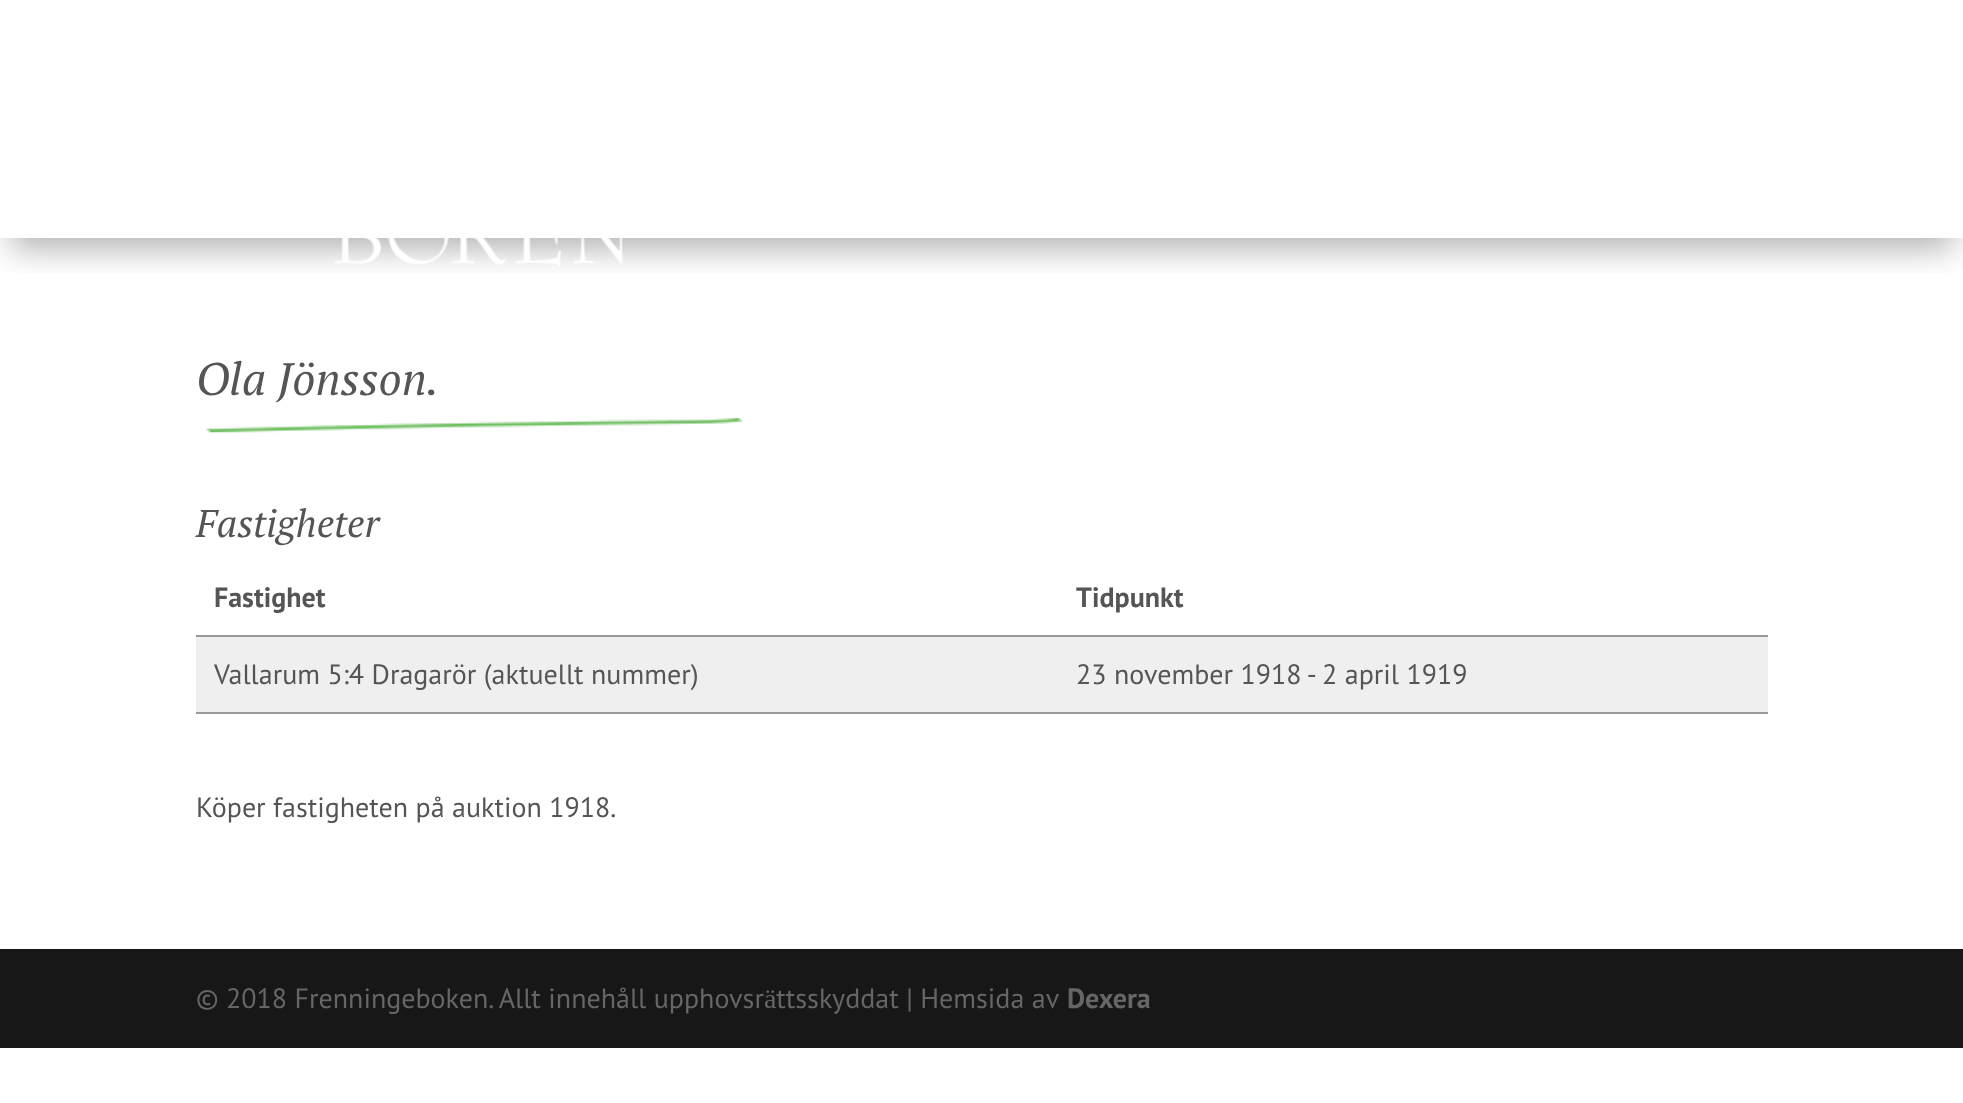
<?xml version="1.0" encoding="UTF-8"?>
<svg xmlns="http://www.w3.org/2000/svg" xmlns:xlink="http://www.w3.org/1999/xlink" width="1963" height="1103">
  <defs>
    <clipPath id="clip1"><rect x="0" y="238" width="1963" height="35" /></clipPath>
  </defs>
  <rect width="100%" height="100%" fill="#ffffff" />
  <g clip-path="url(#clip1)">
    <rect x="11" y="32" width="1942" height="217" fill="#000000" fill-opacity="0.3" filter="blur(16px)" />
  </g>
  <image x="334" y="238" width="289" height="29" xlink:href="image1.png" />
  <image x="206" y="418" width="537" height="15" xlink:href="image2.png" />
  <rect x="196" y="635" width="1572" height="2" fill="#999999" />
  <rect x="196" y="712" width="1572" height="2" fill="#999999" />
  <rect x="196" y="637" width="1572" height="75" fill="#efefef" />
  <rect y="949" width="1963" height="99" fill="#171717" />
  <text x="196" y="395" style="font-family: PT Serif; font-size: 45.5px; font-style: italic; fill: #555555">Ola Jönsson.</text>
  <text x="196" y="537" style="font-family: PT Serif; font-size: 38.5px; font-style: italic; fill: #555555">Fastigheter</text>
  <text x="214" y="607" style="font-family: PT Sans; font-size: 28px; font-weight: bold; fill: #555555">Fastighet</text>
  <text x="1076" y="607" style="font-family: PT Sans; font-size: 28px; font-weight: bold; fill: #555555">Tidpunkt</text>
  <text x="214" y="684" style="font-family: PT Sans; font-size: 28px; fill: #555555">Vallarum 5:4 Dragarör (aktuellt nummer)</text>
  <text x="1076" y="684" style="font-family: PT Sans; font-size: 28px; fill: #555555">23 november 1918 - 2 april 1919</text>
  <text x="196" y="817" style="font-family: PT Sans; font-size: 28px; fill: #555555">Köper fastigheten på auktion 1918.</text>
  <text x="196" y="1008" style="font-family: PT Sans; font-size: 28px; fill: #666666">© 2018 Frenningeboken. Allt innehåll upphovsrättsskyddat | Hemsida av</text>
  <text x="1067" y="1008" style="font-family: PT Sans; font-size: 28px; font-weight: bold; fill: #666666">Dexera</text>
</svg>
